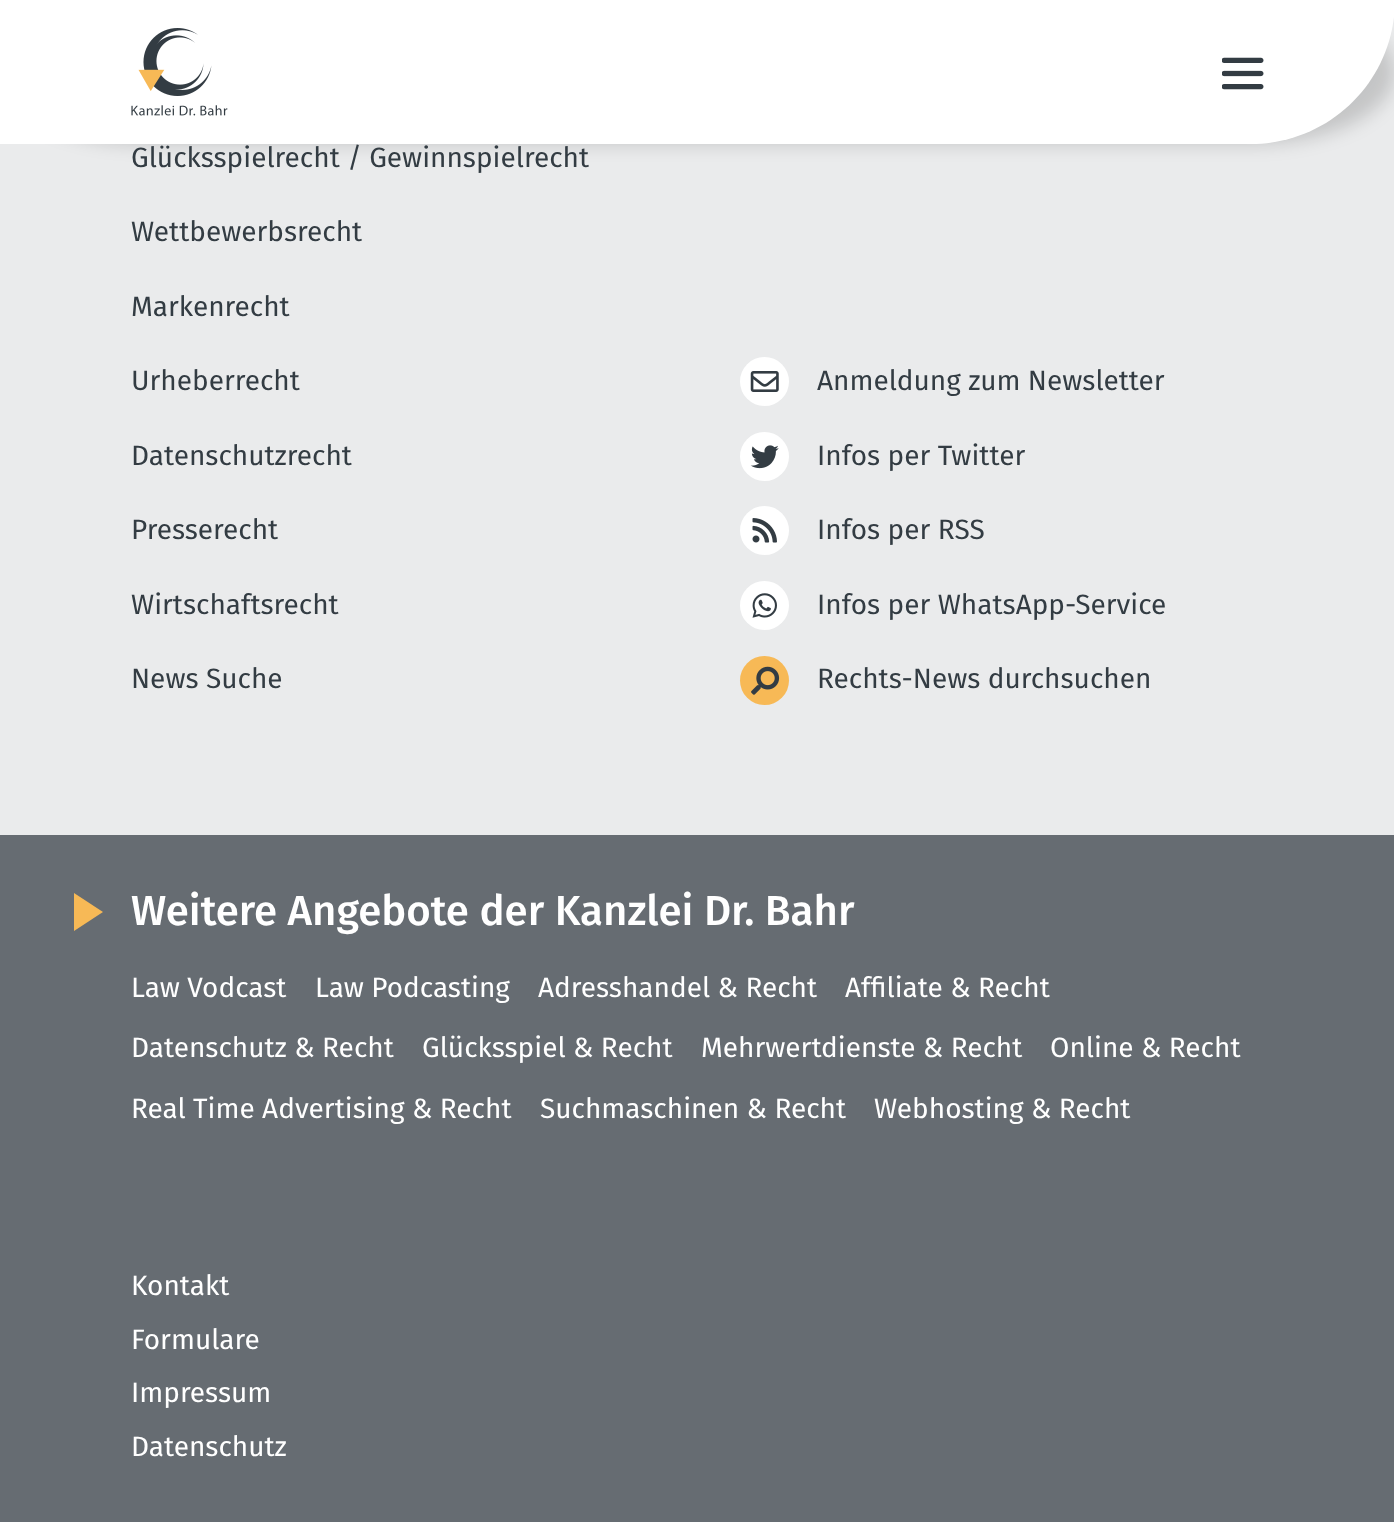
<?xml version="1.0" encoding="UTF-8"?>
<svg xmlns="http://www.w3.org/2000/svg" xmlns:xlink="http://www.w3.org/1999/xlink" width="1394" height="1522">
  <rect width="100%" height="100%" fill="#666c72" />
  <rect x="131" y="143" width="1133" height="692" fill="#eaebec" />
  <rect y="144" width="131" height="691" fill="#eaebec" />
  <rect x="1264" y="17" width="130" height="818" fill="#eaebec" />
  <rect width="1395" height="144" rx="144" fill="#000000" fill-opacity="0.16" filter="blur(9px)" />
  <path d="M 0 0 h 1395 c 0 79.5 -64.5 144 -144 144 h -1251 z" fill="#ffffff" />
  <image x="131" y="28" width="97" height="88" xlink:href="image1.png" />
  <image x="1222" y="57" width="42" height="33" xlink:href="image2.png" />
  <circle cx="764.5" cy="381.5" r="24.5" fill="#ffffff" />
  <image x="750" y="371" width="29" height="21" xlink:href="image3.png" />
  <circle cx="764.5" cy="456.5" r="24.5" fill="#ffffff" />
  <image x="750" y="445" width="29" height="24" xlink:href="image4.png" />
  <circle cx="764.5" cy="530.5" r="24.5" fill="#ffffff" />
  <image x="752" y="518" width="25" height="25" xlink:href="image5.png" />
  <circle cx="764.5" cy="605.5" r="24.5" fill="#ffffff" />
  <image x="752" y="593" width="25" height="25" xlink:href="image6.png" />
  <circle cx="764.5" cy="680.5" r="24.5" fill="#f7b956" />
  <image x="751" y="666" width="29" height="29" xlink:href="image7.png" />
  <path d="M 103 912 l -29 19 v -38 z" fill="#f7b956" />
  <text x="131" y="167" style="font-family: Fira Sans; font-size: 28px; fill: #333c43">Glücksspielrecht / Gewinnspielrecht</text>
  <text x="131" y="241" style="font-family: Fira Sans; font-size: 28px; fill: #333c43">Wettbewerbsrecht</text>
  <text x="131" y="316" style="font-family: Fira Sans; font-size: 28px; fill: #333c43">Markenrecht</text>
  <text x="131" y="390" style="font-family: Fira Sans; font-size: 28px; fill: #333c43">Urheberrecht</text>
  <text x="131" y="465" style="font-family: Fira Sans; font-size: 28px; fill: #333c43">Datenschutzrecht</text>
  <text x="131" y="539" style="font-family: Fira Sans; font-size: 28px; fill: #333c43">Presserecht</text>
  <text x="131" y="614" style="font-family: Fira Sans; font-size: 28px; fill: #333c43">Wirtschaftsrecht</text>
  <text x="131" y="688" style="font-family: Fira Sans; font-size: 28px; fill: #333c43">News Suche</text>
  <text x="817" y="390" style="font-family: Fira Sans; font-size: 28px; fill: #333c43">Anmeldung zum Newsletter</text>
  <text x="817" y="465" style="font-family: Fira Sans; font-size: 28px; fill: #333c43">Infos per Twitter</text>
  <text x="817" y="539" style="font-family: Fira Sans; font-size: 28px; fill: #333c43">Infos per RSS</text>
  <text x="817" y="614" style="font-family: Fira Sans; font-size: 28px; fill: #333c43">Infos per WhatsApp-Service</text>
  <text x="817" y="688" style="font-family: Fira Sans; font-size: 28px; fill: #333c43">Rechts-News durchsuchen</text>
  <text x="131" y="925" style="font-family: Fira Sans; font-size: 42px; font-weight: 500; fill: #ffffff">Weitere Angebote der Kanzlei Dr. Bahr</text>
  <text x="131" y="997" style="font-family: Fira Sans; font-size: 28px; fill: #ffffff">Law Vodcast</text>
  <text x="315" y="997" style="font-family: Fira Sans; font-size: 28px; fill: #ffffff">Law Podcasting</text>
  <text x="538" y="997" style="font-family: Fira Sans; font-size: 28px; fill: #ffffff">Adresshandel &amp; Recht</text>
  <text x="845" y="997" style="font-family: Fira Sans; font-size: 28px; fill: #ffffff">Affiliate &amp; Recht</text>
  <text x="131" y="1057" style="font-family: Fira Sans; font-size: 28px; fill: #ffffff">Datenschutz &amp; Recht</text>
  <text x="422" y="1057" style="font-family: Fira Sans; font-size: 28px; fill: #ffffff">Glücksspiel &amp; Recht</text>
  <text x="701" y="1057" style="font-family: Fira Sans; font-size: 28px; fill: #ffffff">Mehrwertdienste &amp; Recht</text>
  <text x="1050" y="1057" style="font-family: Fira Sans; font-size: 28px; fill: #ffffff">Online &amp; Recht</text>
  <text x="131" y="1118" style="font-family: Fira Sans; font-size: 28px; fill: #ffffff">Real Time Advertising &amp; Recht</text>
  <text x="540" y="1118" style="font-family: Fira Sans; font-size: 28px; fill: #ffffff">Suchmaschinen &amp; Recht</text>
  <text x="874" y="1118" style="font-family: Fira Sans; font-size: 28px; fill: #ffffff">Webhosting &amp; Recht</text>
  <text x="131" y="1295" style="font-family: Fira Sans; font-size: 28px; fill: #ffffff">Kontakt</text>
  <text x="131" y="1349" style="font-family: Fira Sans; font-size: 28px; fill: #ffffff">Formulare</text>
  <text x="131" y="1402" style="font-family: Fira Sans; font-size: 28px; fill: #ffffff">Impressum</text>
  <text x="131" y="1456" style="font-family: Fira Sans; font-size: 28px; fill: #ffffff">Datenschutz</text>
</svg>
